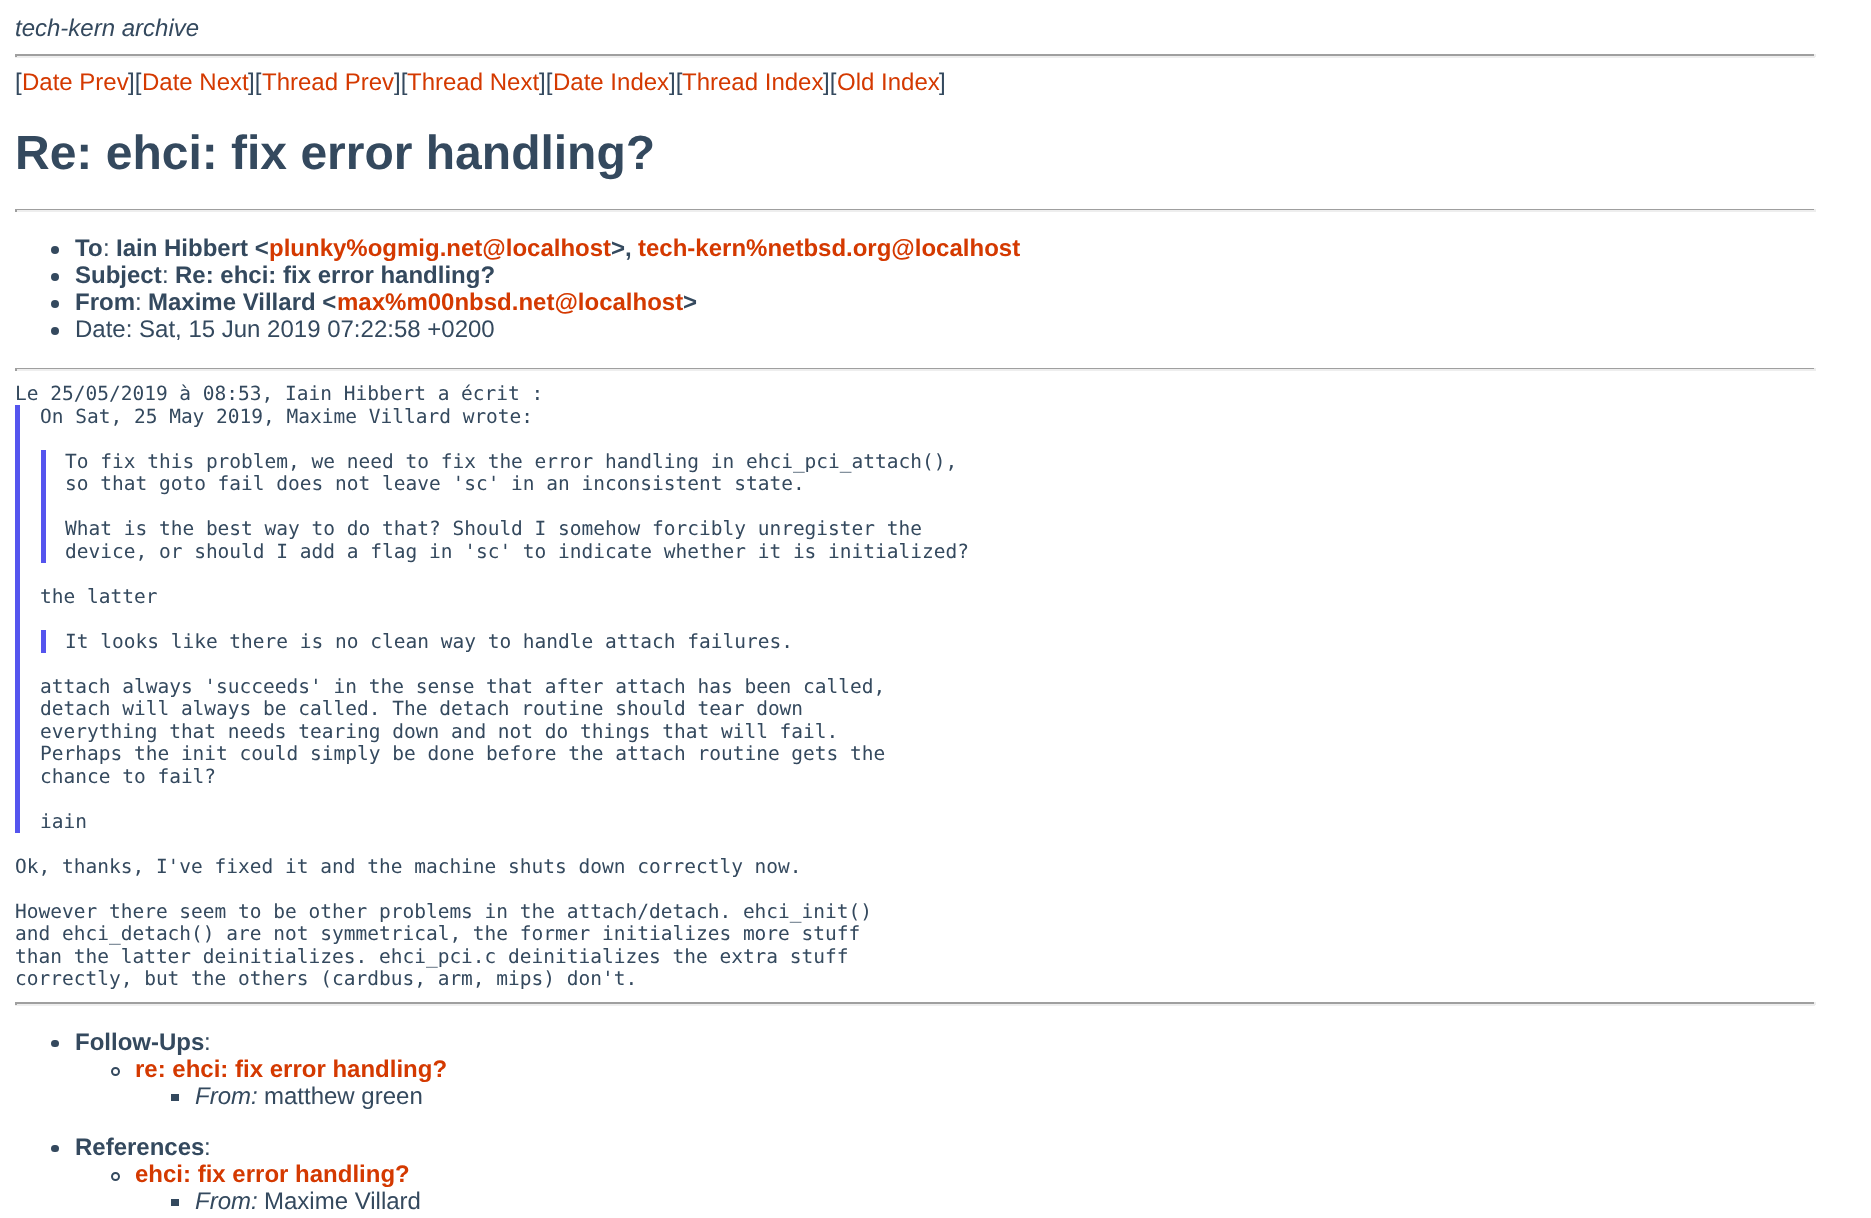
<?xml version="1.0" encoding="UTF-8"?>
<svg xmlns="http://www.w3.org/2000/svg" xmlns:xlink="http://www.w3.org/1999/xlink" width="1871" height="1218">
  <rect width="100%" height="100%" fill="#ffffff" />
  <rect x="15" y="54" width="1800" height="2" fill="#9f9f9f" />
  <rect x="1814" y="54" width="2" height="3" fill="#eeeeee" />
  <rect x="15" y="56" width="1800" height="2" fill="#eeeeee" />
  <rect x="15" y="54" width="2" height="3" fill="#9f9f9f" />
  <rect x="15" y="209" width="1800" height="1" fill="#9f9f9f" />
  <rect x="1814" y="209" width="2" height="3" fill="#eeeeee" />
  <rect x="15" y="210" width="1800" height="2" fill="#eeeeee" />
  <rect x="15" y="209" width="2" height="3" fill="#9f9f9f" />
  <circle cx="55" cy="250" r="4" fill="#34495e" />
  <circle cx="55" cy="277" r="4" fill="#34495e" />
  <circle cx="55" cy="304" r="4" fill="#34495e" />
  <circle cx="55" cy="331" r="4" fill="#34495e" />
  <rect x="15" y="368" width="1800" height="1" fill="#9f9f9f" />
  <rect x="1814" y="368" width="2" height="3" fill="#eeeeee" />
  <rect x="15" y="369" width="1800" height="2" fill="#eeeeee" />
  <rect x="15" y="368" width="2" height="3" fill="#9f9f9f" />
  <rect x="15" y="405" width="5" height="428" fill="#5555ee" />
  <rect x="41" y="450" width="5" height="113" fill="#5555ee" />
  <rect x="41" y="630" width="5" height="23" fill="#5555ee" />
  <rect x="15" y="1002" width="1800" height="2" fill="#9f9f9f" />
  <rect x="1814" y="1002" width="2" height="3" fill="#eeeeee" />
  <rect x="15" y="1004" width="1800" height="2" fill="#eeeeee" />
  <rect x="15" y="1002" width="2" height="3" fill="#9f9f9f" />
  <rect x="51" y="1040" width="8" height="7" rx="3.5" fill="#34495e" />
  <circle cx="115.5" cy="1071.5" r="3.5" fill="none" stroke="#34495e" stroke-width="2" />
  <rect x="171" y="1094" width="8" height="7" fill="#34495e" />
  <rect x="51" y="1145" width="8" height="7" rx="3.5" fill="#34495e" />
  <circle cx="115.5" cy="1176.5" r="3.5" fill="none" stroke="#34495e" stroke-width="2" />
  <rect x="171" y="1199" width="8" height="7" fill="#34495e" />
  <text x="15" y="36" style="font-family: Liberation Sans; font-size: 24px; font-style: italic; fill: #34495e">tech-kern archive</text>
  <text x="15" y="90" style="font-family: Liberation Sans; font-size: 24px; fill: #34495e">[</text>
  <text x="22" y="90" style="font-family: Liberation Sans; font-size: 24px; fill: #d43900">Date Prev</text>
  <text x="128" y="90" style="font-family: Liberation Sans; font-size: 24px; fill: #34495e">][</text>
  <text x="142" y="90" style="font-family: Liberation Sans; font-size: 24px; fill: #d43900">Date Next</text>
  <text x="248" y="90" style="font-family: Liberation Sans; font-size: 24px; fill: #34495e">][</text>
  <text x="262" y="90" style="font-family: Liberation Sans; font-size: 24px; fill: #d43900">Thread Prev</text>
  <text x="394" y="90" style="font-family: Liberation Sans; font-size: 24px; fill: #34495e">][</text>
  <text x="407" y="90" style="font-family: Liberation Sans; font-size: 24px; fill: #d43900">Thread Next</text>
  <text x="539" y="90" style="font-family: Liberation Sans; font-size: 24px; fill: #34495e">][</text>
  <text x="553" y="90" style="font-family: Liberation Sans; font-size: 24px; fill: #d43900">Date Index</text>
  <text x="669" y="90" style="font-family: Liberation Sans; font-size: 24px; fill: #34495e">][</text>
  <text x="682" y="90" style="font-family: Liberation Sans; font-size: 24px; fill: #d43900">Thread Index</text>
  <text x="823" y="90" style="font-family: Liberation Sans; font-size: 24px; fill: #34495e">][</text>
  <text x="837" y="90" style="font-family: Liberation Sans; font-size: 24px; fill: #d43900">Old Index</text>
  <text x="939" y="90" style="font-family: Liberation Sans; font-size: 24px; fill: #34495e">]</text>
  <text x="15" y="169" style="font-family: Liberation Sans; font-size: 48px; font-weight: bold; fill: #34495e">Re: ehci: fix error handling?</text>
  <text x="75" y="256" style="font-family: Liberation Sans; font-size: 24px; font-weight: bold; fill: #34495e">To</text>
  <text x="103" y="256" style="font-family: Liberation Sans; font-size: 24px; fill: #34495e">:</text>
  <text x="116" y="256" style="font-family: Liberation Sans; font-size: 24px; font-weight: bold; fill: #34495e">Iain Hibbert &lt;</text>
  <text x="269" y="256" style="font-family: Liberation Sans; font-size: 24px; font-weight: bold; fill: #d43900">plunky%ogmig.net@localhost</text>
  <text x="611" y="256" style="font-family: Liberation Sans; font-size: 24px; font-weight: bold; fill: #34495e">&gt;,</text>
  <text x="638" y="256" style="font-family: Liberation Sans; font-size: 24px; font-weight: bold; fill: #d43900">tech-kern%netbsd.org@localhost</text>
  <text x="75" y="283" style="font-family: Liberation Sans; font-size: 24px; font-weight: bold; fill: #34495e">Subject</text>
  <text x="162" y="283" style="font-family: Liberation Sans; font-size: 24px; fill: #34495e">:</text>
  <text x="175" y="283" style="font-family: Liberation Sans; font-size: 24px; font-weight: bold; fill: #34495e">Re: ehci: fix error handling?</text>
  <text x="75" y="310" style="font-family: Liberation Sans; font-size: 24px; font-weight: bold; fill: #34495e">From</text>
  <text x="135" y="310" style="font-family: Liberation Sans; font-size: 24px; fill: #34495e">:</text>
  <text x="148" y="310" style="font-family: Liberation Sans; font-size: 24px; font-weight: bold; fill: #34495e">Maxime Villard &lt;</text>
  <text x="337" y="310" style="font-family: Liberation Sans; font-size: 24px; font-weight: bold; fill: #d43900">max%m00nbsd.net@localhost</text>
  <text x="683" y="310" style="font-family: Liberation Sans; font-size: 24px; font-weight: bold; fill: #34495e">&gt;</text>
  <text x="75" y="337" style="font-family: Liberation Sans; font-size: 24px; fill: #34495e">Date: Sat, 15 Jun 2019 07:22:58 +0200</text>
  <text x="15" y="400" style="font-family: DejaVu Sans Mono; font-size: 19.5px; fill: #34495e">Le 25/05/2019 à 08:53, Iain Hibbert a écrit :</text>
  <text x="40" y="423" style="font-family: DejaVu Sans Mono; font-size: 19.5px; fill: #34495e">On Sat, 25 May 2019, Maxime Villard wrote:</text>
  <text x="65" y="468" style="font-family: DejaVu Sans Mono; font-size: 19.5px; fill: #34495e">To fix this problem, we need to fix the error handling in ehci_pci_attach(),</text>
  <text x="65" y="490" style="font-family: DejaVu Sans Mono; font-size: 19.5px; fill: #34495e">so that goto fail does not leave 'sc' in an inconsistent state.</text>
  <text x="65" y="535" style="font-family: DejaVu Sans Mono; font-size: 19.5px; fill: #34495e">What is the best way to do that? Should I somehow forcibly unregister the</text>
  <text x="65" y="558" style="font-family: DejaVu Sans Mono; font-size: 19.5px; fill: #34495e">device, or should I add a flag in 'sc' to indicate whether it is initialized?</text>
  <text x="40" y="603" style="font-family: DejaVu Sans Mono; font-size: 19.5px; fill: #34495e">the latter</text>
  <text x="65" y="648" style="font-family: DejaVu Sans Mono; font-size: 19.5px; fill: #34495e">It looks like there is no clean way to handle attach failures.</text>
  <text x="40" y="693" style="font-family: DejaVu Sans Mono; font-size: 19.5px; fill: #34495e">attach always 'succeeds' in the sense that after attach has been called,</text>
  <text x="40" y="715" style="font-family: DejaVu Sans Mono; font-size: 19.5px; fill: #34495e">detach will always be called. The detach routine should tear down</text>
  <text x="40" y="738" style="font-family: DejaVu Sans Mono; font-size: 19.5px; fill: #34495e">everything that needs tearing down and not do things that will fail.</text>
  <text x="40" y="760" style="font-family: DejaVu Sans Mono; font-size: 19.5px; fill: #34495e">Perhaps the init could simply be done before the attach routine gets the</text>
  <text x="40" y="783" style="font-family: DejaVu Sans Mono; font-size: 19.5px; fill: #34495e">chance to fail?</text>
  <text x="40" y="828" style="font-family: DejaVu Sans Mono; font-size: 19.5px; fill: #34495e">iain</text>
  <text x="15" y="873" style="font-family: DejaVu Sans Mono; font-size: 19.5px; fill: #34495e">Ok, thanks, I've fixed it and the machine shuts down correctly now.</text>
  <text x="15" y="918" style="font-family: DejaVu Sans Mono; font-size: 19.5px; fill: #34495e">However there seem to be other problems in the attach/detach. ehci_init()</text>
  <text x="15" y="940" style="font-family: DejaVu Sans Mono; font-size: 19.5px; fill: #34495e">and ehci_detach() are not symmetrical, the former initializes more stuff</text>
  <text x="15" y="963" style="font-family: DejaVu Sans Mono; font-size: 19.5px; fill: #34495e">than the latter deinitializes. ehci_pci.c deinitializes the extra stuff</text>
  <text x="15" y="985" style="font-family: DejaVu Sans Mono; font-size: 19.5px; fill: #34495e">correctly, but the others (cardbus, arm, mips) don't.</text>
  <text x="75" y="1050" style="font-family: Liberation Sans; font-size: 24px; font-weight: bold; fill: #34495e">Follow-Ups</text>
  <text x="204" y="1050" style="font-family: Liberation Sans; font-size: 24px; fill: #34495e">:</text>
  <text x="135" y="1077" style="font-family: Liberation Sans; font-size: 24px; font-weight: bold; fill: #d43900">re: ehci: fix error handling?</text>
  <text x="195" y="1104" style="font-family: Liberation Sans; font-size: 24px; font-style: italic; fill: #34495e">From:</text>
  <text x="264" y="1104" style="font-family: Liberation Sans; font-size: 24px; fill: #34495e">matthew green</text>
  <text x="75" y="1155" style="font-family: Liberation Sans; font-size: 24px; font-weight: bold; fill: #34495e">References</text>
  <text x="204" y="1155" style="font-family: Liberation Sans; font-size: 24px; fill: #34495e">:</text>
  <text x="135" y="1182" style="font-family: Liberation Sans; font-size: 24px; font-weight: bold; fill: #d43900">ehci: fix error handling?</text>
  <text x="195" y="1209" style="font-family: Liberation Sans; font-size: 24px; font-style: italic; fill: #34495e">From:</text>
  <text x="264" y="1209" style="font-family: Liberation Sans; font-size: 24px; fill: #34495e">Maxime Villard</text>
</svg>
